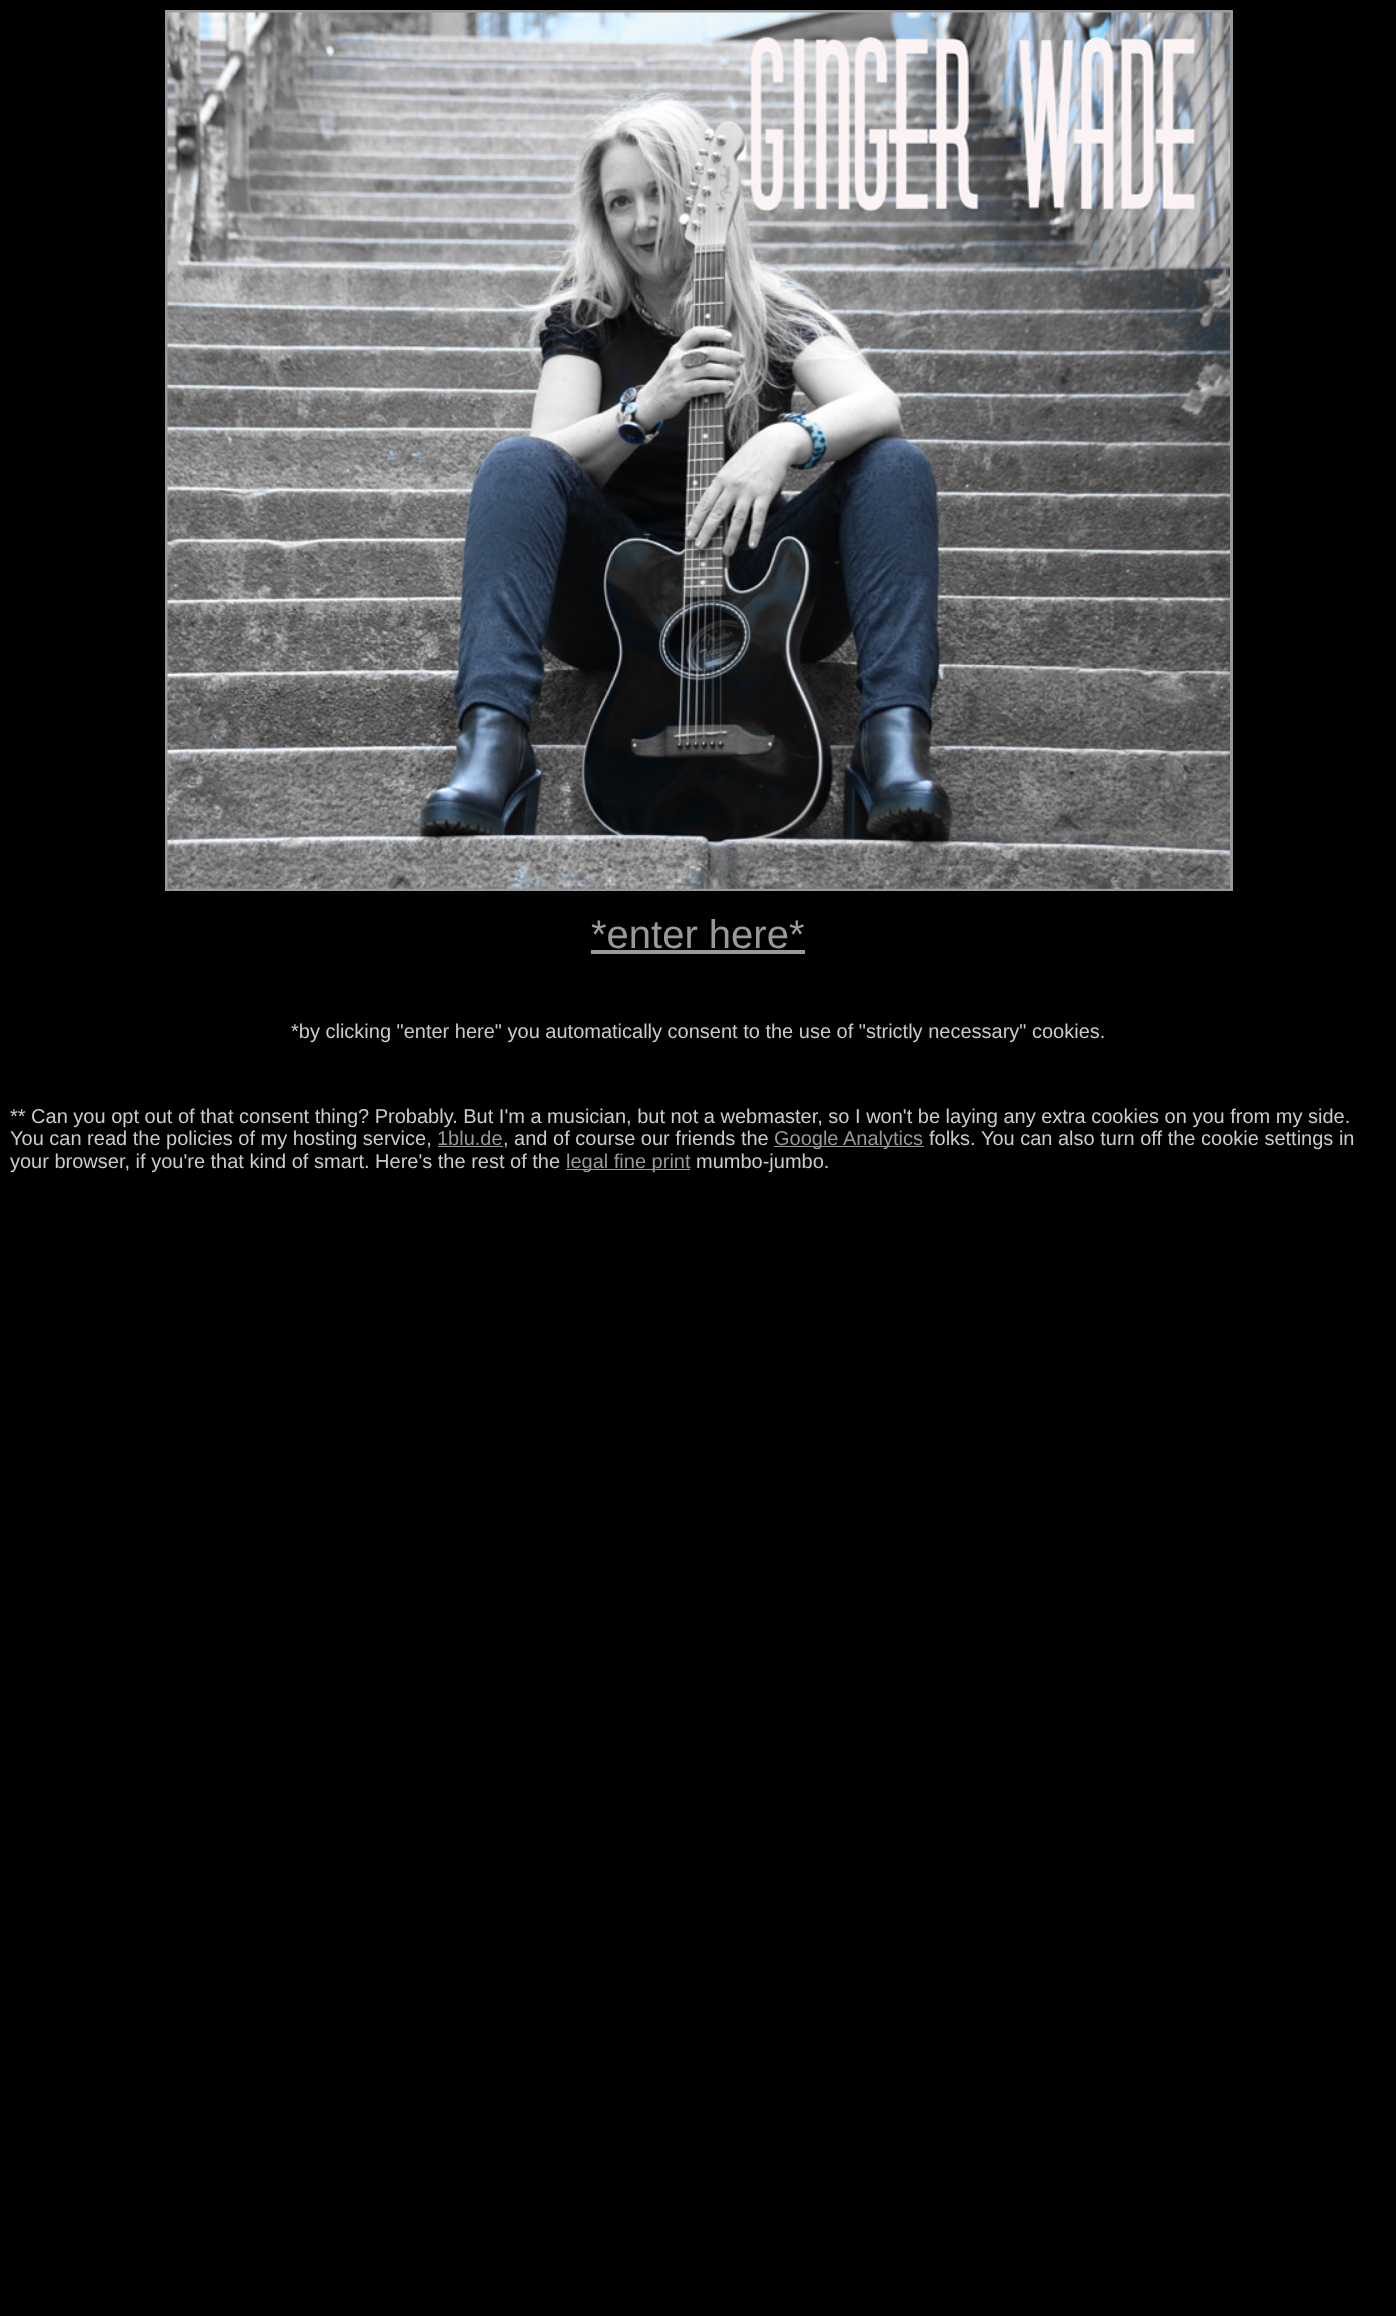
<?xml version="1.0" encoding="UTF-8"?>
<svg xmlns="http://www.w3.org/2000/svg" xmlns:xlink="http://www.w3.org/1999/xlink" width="1396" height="2316">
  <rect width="100%" height="100%" fill="#000000" />
  <rect x="166.5" y="11.5" width="1065" height="878" fill="none" stroke="#999999" stroke-width="3" />
  <image x="167" y="12" width="1063" height="877" xlink:href="image1.png" />
  <rect x="591" y="950" width="214" height="4" fill="#999999" />
  <rect x="438" y="1146" width="65" height="1" fill="#999999" />
  <rect x="774" y="1146" width="150" height="1" fill="#999999" />
  <rect x="566" y="1169" width="124" height="1" fill="#999999" />
  <text x="591" y="948" style="font-family: Liberation Sans; font-size: 40px; fill: #999999">*enter here*</text>
  <text x="291" y="1038" style="font-family: Liberation Sans; font-size: 20px; fill: #cccccc">*by clicking "enter here" you automatically consent to the use of "strictly necessary" cookies.</text>
  <text x="10" y="1123" style="font-family: Liberation Sans; font-size: 20px; fill: #cccccc">** Can you opt out of that consent thing? Probably. But I'm a musician, but not a webmaster, so I won't be laying any extra cookies on you from my side.</text>
  <text x="10" y="1145" style="font-family: Liberation Sans; font-size: 20px; fill: #cccccc">You can read the policies of my hosting service,</text>
  <text x="437" y="1145" style="font-family: Liberation Sans; font-size: 20px; fill: #999999">1blu.de</text>
  <text x="503" y="1145" style="font-family: Liberation Sans; font-size: 20px; fill: #cccccc">, and of course our friends the</text>
  <text x="774" y="1145" style="font-family: Liberation Sans; font-size: 20px; fill: #999999">Google</text>
  <text x="843" y="1145" style="font-family: Liberation Sans; font-size: 20px; fill: #999999">Analytics</text>
  <text x="929" y="1145" style="font-family: Liberation Sans; font-size: 20px; fill: #cccccc">folks. You can also turn off the cookie settings in</text>
  <text x="10" y="1168" style="font-family: Liberation Sans; font-size: 20px; fill: #cccccc">your browser, if you're that kind of smart. Here's the rest of the</text>
  <text x="566" y="1168" style="font-family: Liberation Sans; font-size: 20px; fill: #999999">legal fine print</text>
  <text x="696" y="1168" style="font-family: Liberation Sans; font-size: 20px; fill: #cccccc">mumbo-jumbo.</text>
</svg>
